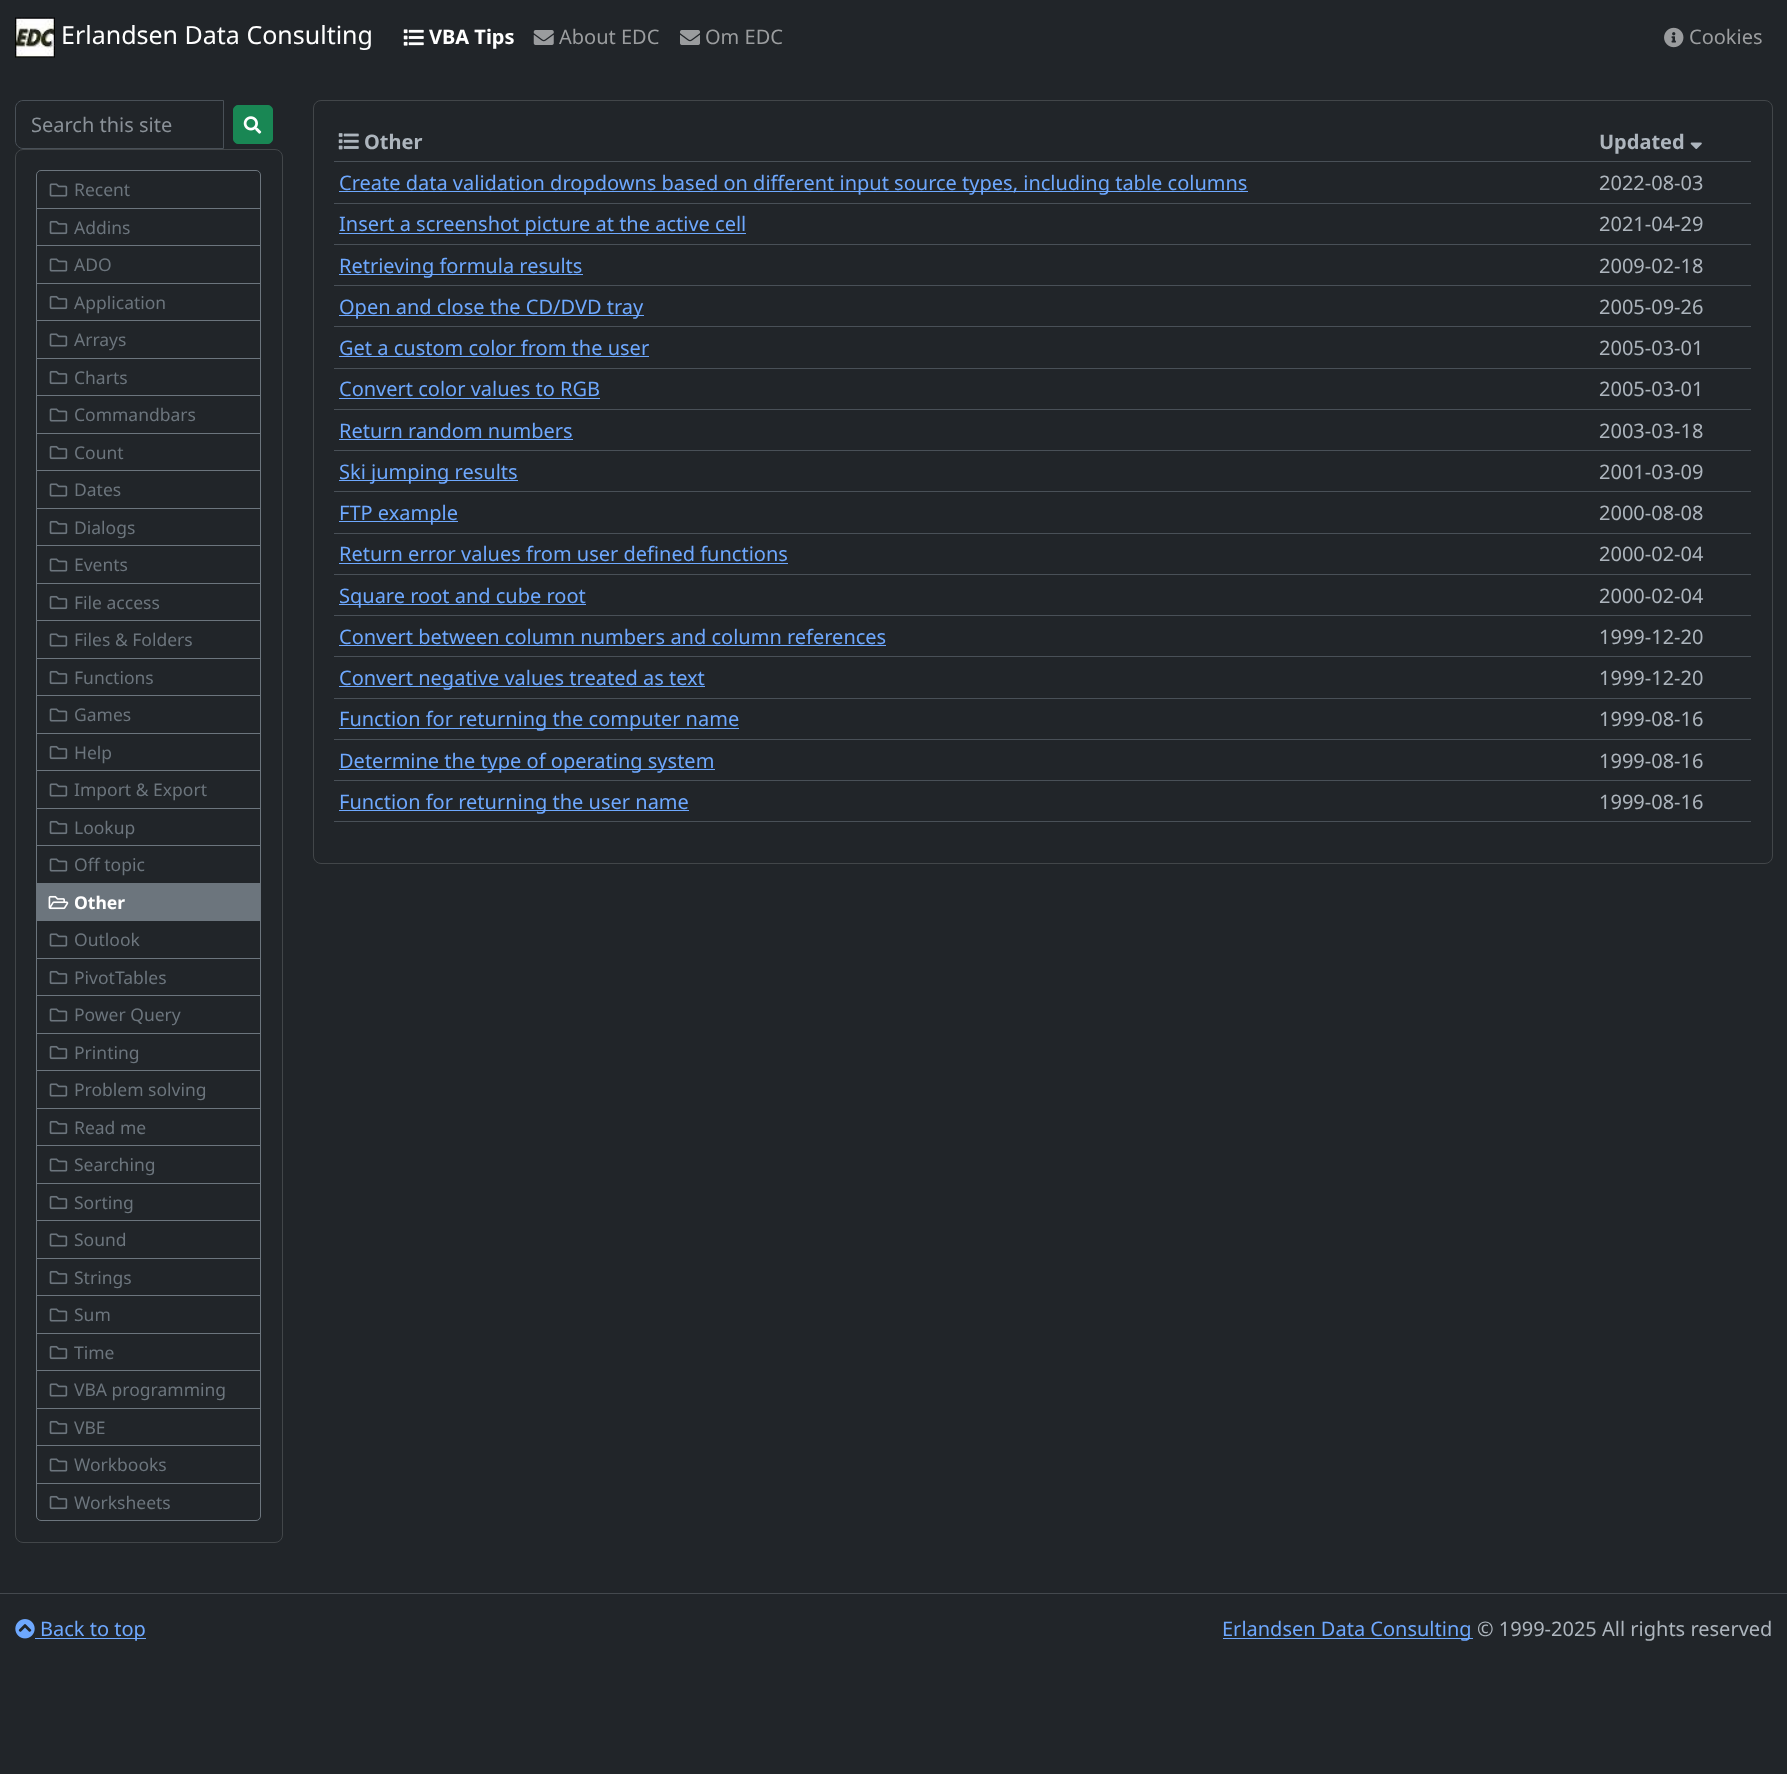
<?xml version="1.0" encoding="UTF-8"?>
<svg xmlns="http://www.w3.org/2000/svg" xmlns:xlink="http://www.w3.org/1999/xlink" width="1787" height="1774">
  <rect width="100%" height="100%" fill="#212529" />
  <image x="15" y="17" width="40" height="41" xlink:href="image1.png" />
  <image x="403" y="29" width="21" height="17" xlink:href="image2.png" />
  <image x="533" y="30" width="21" height="15" xlink:href="image3.png" />
  <image x="680" y="30" width="20" height="15" xlink:href="image4.png" />
  <image x="1664" y="27" width="20" height="21" xlink:href="image5.png" />
  <path d="M 23 100.5 h 200.5 v 48 h -200.5 c -4 0 -7.5 -3.5 -7.5 -7.5 v -33 c 0 -4 3.5 -7.5 7.5 -7.5 z" fill="none" stroke="#495057" />
  <rect x="233.5" y="105.5" width="39" height="38" rx="4.5" fill="#198754" stroke="#198754" />
  <image x="243" y="116" width="19" height="18" xlink:href="image6.png" />
  <rect x="15.5" y="149.5" width="267" height="1393" rx="7.5" fill="none" stroke="#424649" />
  <path d="M 41 170.5 h 215 c 2.5 0 4.5 2 4.5 4.5 v 33.5 h -224 v -33.5 c 0 -2.5 2 -4.5 4.5 -4.5 z" fill="none" stroke="#6c757d" />
  <image x="49" y="183" width="19" height="14" xlink:href="image7.png" />
  <rect x="36.5" y="208.5" width="224" height="37" fill="none" stroke="#6c757d" />
  <image x="49" y="220" width="19" height="15" xlink:href="image8.png" />
  <rect x="36.5" y="245.5" width="224" height="38" fill="none" stroke="#6c757d" />
  <image x="49" y="258" width="19" height="14" xlink:href="image7.png" />
  <rect x="36.5" y="283.5" width="224" height="37" fill="none" stroke="#6c757d" />
  <image x="49" y="295" width="19" height="15" xlink:href="image8.png" />
  <rect x="36.5" y="320.5" width="224" height="38" fill="none" stroke="#6c757d" />
  <image x="49" y="333" width="19" height="14" xlink:href="image7.png" />
  <rect x="36.5" y="358.5" width="224" height="37" fill="none" stroke="#6c757d" />
  <image x="49" y="370" width="19" height="15" xlink:href="image8.png" />
  <rect x="36.5" y="395.5" width="224" height="38" fill="none" stroke="#6c757d" />
  <image x="49" y="408" width="19" height="14" xlink:href="image7.png" />
  <rect x="36.5" y="433.5" width="224" height="37" fill="none" stroke="#6c757d" />
  <image x="49" y="445" width="19" height="15" xlink:href="image8.png" />
  <rect x="36.5" y="470.5" width="224" height="38" fill="none" stroke="#6c757d" />
  <image x="49" y="483" width="19" height="14" xlink:href="image7.png" />
  <rect x="36.5" y="508.5" width="224" height="37" fill="none" stroke="#6c757d" />
  <image x="49" y="520" width="19" height="15" xlink:href="image8.png" />
  <rect x="36.5" y="545.5" width="224" height="38" fill="none" stroke="#6c757d" />
  <image x="49" y="558" width="19" height="14" xlink:href="image7.png" />
  <rect x="36.5" y="583.5" width="224" height="37" fill="none" stroke="#6c757d" />
  <image x="49" y="595" width="19" height="15" xlink:href="image8.png" />
  <rect x="36.5" y="620.5" width="224" height="38" fill="none" stroke="#6c757d" />
  <image x="49" y="633" width="19" height="14" xlink:href="image7.png" />
  <rect x="36.5" y="658.5" width="224" height="37" fill="none" stroke="#6c757d" />
  <image x="49" y="670" width="19" height="15" xlink:href="image8.png" />
  <rect x="36.5" y="695.5" width="224" height="38" fill="none" stroke="#6c757d" />
  <image x="49" y="708" width="19" height="14" xlink:href="image7.png" />
  <rect x="36.5" y="733.5" width="224" height="37" fill="none" stroke="#6c757d" />
  <image x="49" y="745" width="19" height="15" xlink:href="image8.png" />
  <rect x="36.5" y="770.5" width="224" height="38" fill="none" stroke="#6c757d" />
  <image x="49" y="783" width="19" height="14" xlink:href="image7.png" />
  <rect x="36.5" y="808.5" width="224" height="37" fill="none" stroke="#6c757d" />
  <image x="49" y="820" width="19" height="15" xlink:href="image8.png" />
  <rect x="36.5" y="845.5" width="224" height="38" fill="none" stroke="#6c757d" />
  <image x="49" y="858" width="19" height="14" xlink:href="image7.png" />
  <rect x="36" y="884" width="225" height="36" fill="#6c757d" />
  <image x="48" y="895" width="21" height="15" xlink:href="image9.png" />
  <rect x="36.5" y="920.5" width="224" height="38" fill="none" stroke="#6c757d" />
  <image x="49" y="933" width="19" height="14" xlink:href="image7.png" />
  <rect x="36.5" y="958.5" width="224" height="37" fill="none" stroke="#6c757d" />
  <image x="49" y="970" width="19" height="15" xlink:href="image8.png" />
  <rect x="36.5" y="995.5" width="224" height="38" fill="none" stroke="#6c757d" />
  <image x="49" y="1008" width="19" height="14" xlink:href="image7.png" />
  <rect x="36.5" y="1033.5" width="224" height="37" fill="none" stroke="#6c757d" />
  <image x="49" y="1045" width="19" height="15" xlink:href="image8.png" />
  <rect x="36.5" y="1070.5" width="224" height="38" fill="none" stroke="#6c757d" />
  <image x="49" y="1083" width="19" height="14" xlink:href="image7.png" />
  <rect x="36.5" y="1108.5" width="224" height="37" fill="none" stroke="#6c757d" />
  <image x="49" y="1120" width="19" height="15" xlink:href="image8.png" />
  <rect x="36.5" y="1145.5" width="224" height="38" fill="none" stroke="#6c757d" />
  <image x="49" y="1158" width="19" height="14" xlink:href="image7.png" />
  <rect x="36.5" y="1183.5" width="224" height="37" fill="none" stroke="#6c757d" />
  <image x="49" y="1195" width="19" height="15" xlink:href="image8.png" />
  <rect x="36.5" y="1220.5" width="224" height="38" fill="none" stroke="#6c757d" />
  <image x="49" y="1233" width="19" height="14" xlink:href="image7.png" />
  <rect x="36.5" y="1258.5" width="224" height="37" fill="none" stroke="#6c757d" />
  <image x="49" y="1270" width="19" height="15" xlink:href="image8.png" />
  <rect x="36.5" y="1295.5" width="224" height="38" fill="none" stroke="#6c757d" />
  <image x="49" y="1308" width="19" height="14" xlink:href="image7.png" />
  <rect x="36.5" y="1333.5" width="224" height="37" fill="none" stroke="#6c757d" />
  <image x="49" y="1345" width="19" height="15" xlink:href="image8.png" />
  <rect x="36.5" y="1370.5" width="224" height="38" fill="none" stroke="#6c757d" />
  <image x="49" y="1383" width="19" height="14" xlink:href="image7.png" />
  <rect x="36.5" y="1408.5" width="224" height="37" fill="none" stroke="#6c757d" />
  <image x="49" y="1420" width="19" height="15" xlink:href="image8.png" />
  <rect x="36.5" y="1445.5" width="224" height="38" fill="none" stroke="#6c757d" />
  <image x="49" y="1458" width="19" height="14" xlink:href="image7.png" />
  <path d="M 36.5 1483.5 h 224 v 32.5 c 0 2.5 -2 4.5 -4.5 4.5 h -215 c -2.5 0 -4.5 -2 -4.5 -4.5 z" fill="none" stroke="#6c757d" />
  <image x="49" y="1495" width="19" height="15" xlink:href="image8.png" />
  <rect x="313.5" y="100.5" width="1459" height="763" rx="7.5" fill="none" stroke="#424649" />
  <image x="338" y="133" width="21" height="17" xlink:href="image10.png" />
  <rect x="334" y="161" width="1417" height="1" fill="#495057" />
  <image x="1690" y="142" width="12" height="7" xlink:href="image11.png" />
  <rect x="339" y="191" width="909" height="1" fill="#6ea8fe" />
  <rect x="334" y="203" width="1417" height="1" fill="#495057" />
  <rect x="339" y="233" width="407" height="1" fill="#6ea8fe" />
  <rect x="334" y="244" width="1417" height="1" fill="#495057" />
  <rect x="339" y="274" width="244" height="1" fill="#6ea8fe" />
  <rect x="334" y="285" width="1417" height="1" fill="#495057" />
  <rect x="339" y="315" width="305" height="1" fill="#6ea8fe" />
  <rect x="334" y="326" width="1417" height="1" fill="#495057" />
  <rect x="339" y="356" width="310" height="1" fill="#6ea8fe" />
  <rect x="334" y="368" width="1417" height="1" fill="#495057" />
  <rect x="339" y="398" width="261" height="1" fill="#6ea8fe" />
  <rect x="334" y="409" width="1417" height="1" fill="#495057" />
  <rect x="339" y="439" width="234" height="1" fill="#6ea8fe" />
  <rect x="334" y="450" width="1417" height="1" fill="#495057" />
  <rect x="339" y="480" width="179" height="1" fill="#6ea8fe" />
  <rect x="334" y="491" width="1417" height="1" fill="#495057" />
  <rect x="339" y="521" width="119" height="1" fill="#6ea8fe" />
  <rect x="334" y="533" width="1417" height="1" fill="#495057" />
  <rect x="339" y="563" width="449" height="1" fill="#6ea8fe" />
  <rect x="334" y="574" width="1417" height="1" fill="#495057" />
  <rect x="339" y="604" width="247" height="1" fill="#6ea8fe" />
  <rect x="334" y="615" width="1417" height="1" fill="#495057" />
  <rect x="339" y="645" width="547" height="1" fill="#6ea8fe" />
  <rect x="334" y="656" width="1417" height="1" fill="#495057" />
  <rect x="339" y="686" width="366" height="1" fill="#6ea8fe" />
  <rect x="334" y="698" width="1417" height="1" fill="#495057" />
  <rect x="339" y="728" width="400" height="1" fill="#6ea8fe" />
  <rect x="334" y="739" width="1417" height="1" fill="#495057" />
  <rect x="339" y="769" width="376" height="1" fill="#6ea8fe" />
  <rect x="334" y="780" width="1417" height="1" fill="#495057" />
  <rect x="339" y="810" width="350" height="1" fill="#6ea8fe" />
  <rect x="334" y="821" width="1417" height="1" fill="#495057" />
  <rect y="1593" width="1787" height="1" fill="#44494e" />
  <image x="15" y="1619" width="20" height="20" xlink:href="image12.png" />
  <rect x="35" y="1638" width="111" height="1" fill="#6ea8fe" />
  <rect x="1223" y="1638" width="250" height="1" fill="#6ea8fe" />
  <text x="61" y="44" style="font-family: Noto Sans; font-size: 25px; fill: #ffffff">Erlandsen Data Consulting</text>
  <text x="429" y="44" style="font-family: Noto Sans; font-size: 20px; font-weight: bold; fill: #ffffff">VBA Tips</text>
  <text x="559" y="44" style="font-family: Noto Sans; font-size: 20px; fill: #9b9d9f">About EDC</text>
  <text x="705" y="44" style="font-family: Noto Sans; font-size: 20px; fill: #9b9d9f">Om EDC</text>
  <text x="1689" y="44" style="font-family: Noto Sans; font-size: 20px; fill: #9b9d9f">Cookies</text>
  <text x="31" y="132" style="font-family: Noto Sans; font-size: 20px; fill: #8a9198">Search this site</text>
  <text x="74" y="196" style="font-family: Noto Sans; font-size: 17.5px; fill: #6c757d">Recent</text>
  <text x="74" y="234" style="font-family: Noto Sans; font-size: 17.5px; fill: #6c757d">Addins</text>
  <text x="74" y="271" style="font-family: Noto Sans; font-size: 17.5px; fill: #6c757d">ADO</text>
  <text x="74" y="309" style="font-family: Noto Sans; font-size: 17.5px; fill: #6c757d">Application</text>
  <text x="74" y="346" style="font-family: Noto Sans; font-size: 17.5px; fill: #6c757d">Arrays</text>
  <text x="74" y="384" style="font-family: Noto Sans; font-size: 17.5px; fill: #6c757d">Charts</text>
  <text x="74" y="421" style="font-family: Noto Sans; font-size: 17.5px; fill: #6c757d">Commandbars</text>
  <text x="74" y="459" style="font-family: Noto Sans; font-size: 17.5px; fill: #6c757d">Count</text>
  <text x="74" y="496" style="font-family: Noto Sans; font-size: 17.5px; fill: #6c757d">Dates</text>
  <text x="74" y="534" style="font-family: Noto Sans; font-size: 17.5px; fill: #6c757d">Dialogs</text>
  <text x="74" y="571" style="font-family: Noto Sans; font-size: 17.5px; fill: #6c757d">Events</text>
  <text x="74" y="609" style="font-family: Noto Sans; font-size: 17.5px; fill: #6c757d">File access</text>
  <text x="74" y="646" style="font-family: Noto Sans; font-size: 17.5px; fill: #6c757d">Files &amp; Folders</text>
  <text x="74" y="684" style="font-family: Noto Sans; font-size: 17.5px; fill: #6c757d">Functions</text>
  <text x="74" y="721" style="font-family: Noto Sans; font-size: 17.5px; fill: #6c757d">Games</text>
  <text x="74" y="759" style="font-family: Noto Sans; font-size: 17.5px; fill: #6c757d">Help</text>
  <text x="74" y="796" style="font-family: Noto Sans; font-size: 17.5px; fill: #6c757d">Import &amp; Export</text>
  <text x="74" y="834" style="font-family: Noto Sans; font-size: 17.5px; fill: #6c757d">Lookup</text>
  <text x="74" y="871" style="font-family: Noto Sans; font-size: 17.5px; fill: #6c757d">Off topic</text>
  <text x="74" y="909" style="font-family: Noto Sans; font-size: 17.5px; font-weight: bold; fill: #ffffff">Other</text>
  <text x="74" y="946" style="font-family: Noto Sans; font-size: 17.5px; fill: #6c757d">Outlook</text>
  <text x="74" y="984" style="font-family: Noto Sans; font-size: 17.5px; fill: #6c757d">PivotTables</text>
  <text x="74" y="1021" style="font-family: Noto Sans; font-size: 17.5px; fill: #6c757d">Power Query</text>
  <text x="74" y="1059" style="font-family: Noto Sans; font-size: 17.5px; fill: #6c757d">Printing</text>
  <text x="74" y="1096" style="font-family: Noto Sans; font-size: 17.5px; fill: #6c757d">Problem solving</text>
  <text x="74" y="1134" style="font-family: Noto Sans; font-size: 17.5px; fill: #6c757d">Read me</text>
  <text x="74" y="1171" style="font-family: Noto Sans; font-size: 17.5px; fill: #6c757d">Searching</text>
  <text x="74" y="1209" style="font-family: Noto Sans; font-size: 17.5px; fill: #6c757d">Sorting</text>
  <text x="74" y="1246" style="font-family: Noto Sans; font-size: 17.5px; fill: #6c757d">Sound</text>
  <text x="74" y="1284" style="font-family: Noto Sans; font-size: 17.5px; fill: #6c757d">Strings</text>
  <text x="74" y="1321" style="font-family: Noto Sans; font-size: 17.5px; fill: #6c757d">Sum</text>
  <text x="74" y="1359" style="font-family: Noto Sans; font-size: 17.5px; fill: #6c757d">Time</text>
  <text x="74" y="1396" style="font-family: Noto Sans; font-size: 17.5px; fill: #6c757d">VBA programming</text>
  <text x="74" y="1434" style="font-family: Noto Sans; font-size: 17.5px; fill: #6c757d">VBE</text>
  <text x="74" y="1471" style="font-family: Noto Sans; font-size: 17.5px; fill: #6c757d">Workbooks</text>
  <text x="74" y="1509" style="font-family: Noto Sans; font-size: 17.5px; fill: #6c757d">Worksheets</text>
  <text x="364" y="149" style="font-family: Noto Sans; font-size: 20px; font-weight: bold; fill: #adb5bd">Other</text>
  <text x="1599" y="149" style="font-family: Noto Sans; font-size: 20px; font-weight: bold; fill: #adb5bd">Updated</text>
  <text x="339" y="190" style="font-family: Noto Sans; font-size: 20px; fill: #6ea8fe">Create data validation dropdowns based on different input source types, including table columns</text>
  <text x="1599" y="190" style="font-family: Noto Sans; font-size: 20px; fill: #adb5bd">2022-08-03</text>
  <text x="339" y="231" style="font-family: Noto Sans; font-size: 20px; fill: #6ea8fe">Insert a screenshot picture at the active cell</text>
  <text x="1599" y="231" style="font-family: Noto Sans; font-size: 20px; fill: #adb5bd">2021-04-29</text>
  <text x="339" y="273" style="font-family: Noto Sans; font-size: 20px; fill: #6ea8fe">Retrieving formula results</text>
  <text x="1599" y="273" style="font-family: Noto Sans; font-size: 20px; fill: #adb5bd">2009-02-18</text>
  <text x="339" y="314" style="font-family: Noto Sans; font-size: 20px; fill: #6ea8fe">Open and close the CD/DVD tray</text>
  <text x="1599" y="314" style="font-family: Noto Sans; font-size: 20px; fill: #adb5bd">2005-09-26</text>
  <text x="339" y="355" style="font-family: Noto Sans; font-size: 20px; fill: #6ea8fe">Get a custom color from the user</text>
  <text x="1599" y="355" style="font-family: Noto Sans; font-size: 20px; fill: #adb5bd">2005-03-01</text>
  <text x="339" y="396" style="font-family: Noto Sans; font-size: 20px; fill: #6ea8fe">Convert color values to RGB</text>
  <text x="1599" y="396" style="font-family: Noto Sans; font-size: 20px; fill: #adb5bd">2005-03-01</text>
  <text x="339" y="438" style="font-family: Noto Sans; font-size: 20px; fill: #6ea8fe">Return random numbers</text>
  <text x="1599" y="438" style="font-family: Noto Sans; font-size: 20px; fill: #adb5bd">2003-03-18</text>
  <text x="339" y="479" style="font-family: Noto Sans; font-size: 20px; fill: #6ea8fe">Ski jumping results</text>
  <text x="1599" y="479" style="font-family: Noto Sans; font-size: 20px; fill: #adb5bd">2001-03-09</text>
  <text x="339" y="520" style="font-family: Noto Sans; font-size: 20px; fill: #6ea8fe">FTP example</text>
  <text x="1599" y="520" style="font-family: Noto Sans; font-size: 20px; fill: #adb5bd">2000-08-08</text>
  <text x="339" y="561" style="font-family: Noto Sans; font-size: 20px; fill: #6ea8fe">Return error values from user defined functions</text>
  <text x="1599" y="561" style="font-family: Noto Sans; font-size: 20px; fill: #adb5bd">2000-02-04</text>
  <text x="339" y="603" style="font-family: Noto Sans; font-size: 20px; fill: #6ea8fe">Square root and cube root</text>
  <text x="1599" y="603" style="font-family: Noto Sans; font-size: 20px; fill: #adb5bd">2000-02-04</text>
  <text x="339" y="644" style="font-family: Noto Sans; font-size: 20px; fill: #6ea8fe">Convert between column numbers and column references</text>
  <text x="1599" y="644" style="font-family: Noto Sans; font-size: 20px; fill: #adb5bd">1999-12-20</text>
  <text x="339" y="685" style="font-family: Noto Sans; font-size: 20px; fill: #6ea8fe">Convert negative values treated as text</text>
  <text x="1599" y="685" style="font-family: Noto Sans; font-size: 20px; fill: #adb5bd">1999-12-20</text>
  <text x="339" y="726" style="font-family: Noto Sans; font-size: 20px; fill: #6ea8fe">Function for returning the computer name</text>
  <text x="1599" y="726" style="font-family: Noto Sans; font-size: 20px; fill: #adb5bd">1999-08-16</text>
  <text x="339" y="768" style="font-family: Noto Sans; font-size: 20px; fill: #6ea8fe">Determine the type of operating system</text>
  <text x="1599" y="768" style="font-family: Noto Sans; font-size: 20px; fill: #adb5bd">1999-08-16</text>
  <text x="339" y="809" style="font-family: Noto Sans; font-size: 20px; fill: #6ea8fe">Function for returning the user name</text>
  <text x="1599" y="809" style="font-family: Noto Sans; font-size: 20px; fill: #adb5bd">1999-08-16</text>
  <text x="40" y="1636" style="font-family: Noto Sans; font-size: 20px; fill: #6ea8fe">Back to top</text>
  <text x="1222" y="1636" style="font-family: Noto Sans; font-size: 20px; fill: #6ea8fe">Erlandsen Data Consulting</text>
  <text x="1477" y="1636" style="font-family: Noto Sans; font-size: 20px; fill: #adb5bd">© 1999-2025 All rights reserved</text>
</svg>
